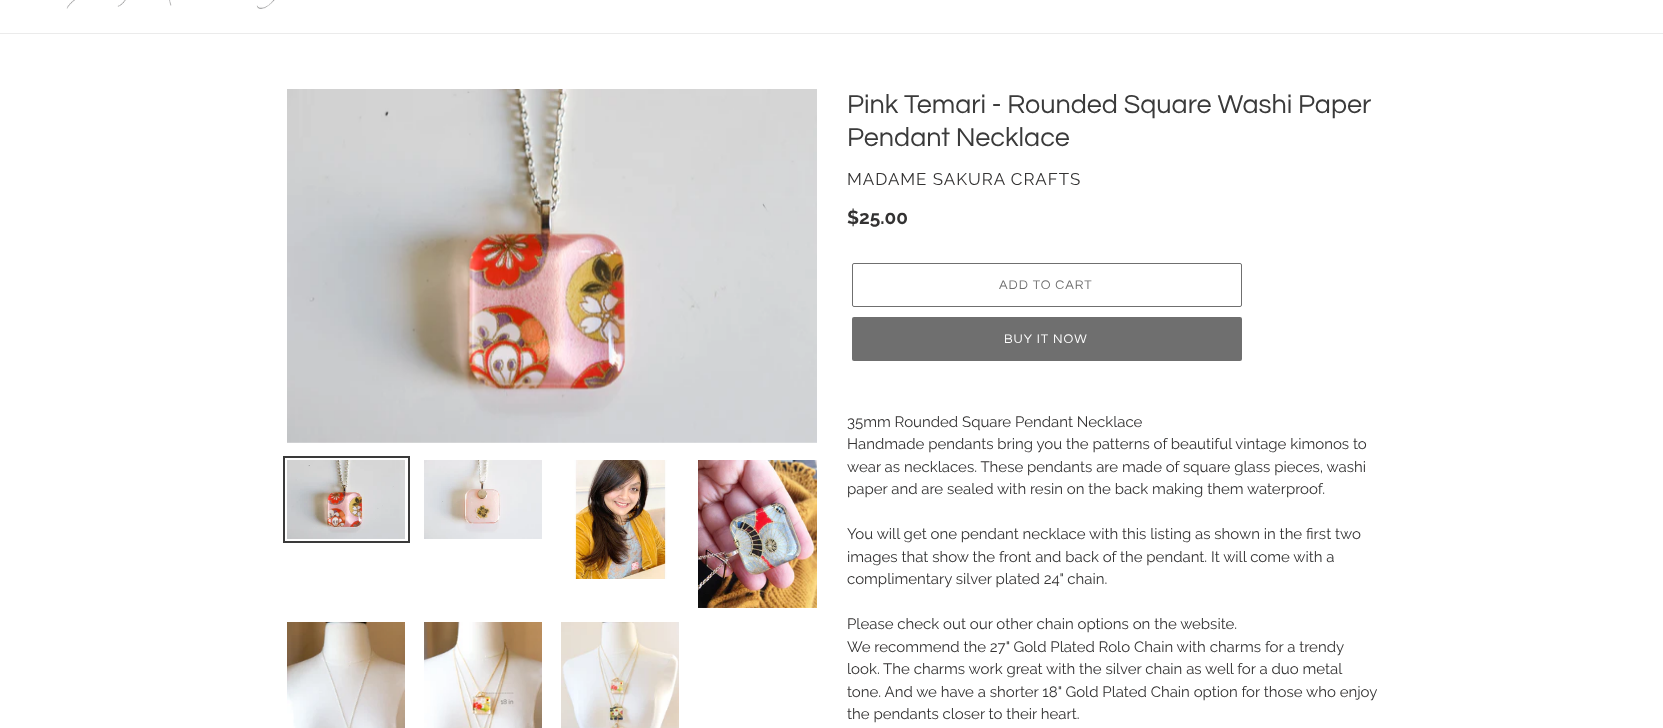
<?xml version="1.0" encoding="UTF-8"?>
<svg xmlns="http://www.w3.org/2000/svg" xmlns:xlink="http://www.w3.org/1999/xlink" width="1663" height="728">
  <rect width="100%" height="100%" fill="#ffffff" />
  <rect y="33" width="1663" height="1" fill="#ebebeb" />
  <image x="66" y="0" width="209" height="9" xlink:href="image1.png" />
  <image x="287" y="89" width="530" height="354" xlink:href="image2.png" />
  <rect x="284" y="457" width="125" height="85" fill="none" stroke="#3a3a3a" stroke-width="2" />
  <image x="287" y="460" width="118" height="79" xlink:href="image3.png" />
  <image x="424" y="460" width="118" height="79" xlink:href="image4.png" />
  <image x="574" y="460" width="93" height="119" xlink:href="image5.png" />
  <image x="698" y="460" width="119" height="148" xlink:href="image6.png" />
  <image x="287" y="622" width="118" height="106" xlink:href="image7.png" />
  <image x="424" y="622" width="118" height="106" xlink:href="image8.png" />
  <image x="561" y="622" width="118" height="106" xlink:href="image9.png" />
  <rect x="852.5" y="263.5" width="389" height="43" rx="1.5" fill="none" stroke="#6f6f6f" />
  <rect x="852" y="317" width="390" height="44" rx="2" fill="#6f6f6f" />
  <text x="847" y="113" style="font-family: Questrial; font-size: 27px; fill: #3a3a3a">Pink Temari - Rounded Square Washi Paper</text>
  <text x="847" y="146" style="font-family: Questrial; font-size: 27px; fill: #3a3a3a">Pendant Necklace</text>
  <text x="847" y="185" style="font-family: Raleway; font-size: 16.9px; letter-spacing: 1px; fill: #333232">MADAME SAKURA CRAFTS</text>
  <text x="847" y="224" style="font-family: Raleway; font-size: 19px; font-weight: bold; fill: #333232">$25.00</text>
  <text x="999" y="289" style="font-family: Questrial; font-size: 13px; letter-spacing: 1px; fill: #6f6f6f">ADD TO CART</text>
  <text x="1004" y="343" style="font-family: Questrial; font-size: 13px; letter-spacing: 1px; fill: #ffffff">BUY IT NOW</text>
  <text x="847" y="427" style="font-family: Raleway; font-size: 15px; fill: #333232">35mm Rounded Square Pendant Necklace</text>
  <text x="847" y="449" style="font-family: Raleway; font-size: 15px; fill: #333232">Handmade pendants bring you the patterns of beautiful vintage kimonos to</text>
  <text x="847" y="472" style="font-family: Raleway; font-size: 15px; fill: #333232">wear as necklaces. These pendants are made of square glass pieces, washi</text>
  <text x="847" y="494" style="font-family: Raleway; font-size: 15px; fill: #333232">paper and are sealed with resin on the back making them waterproof.</text>
  <text x="847" y="539" style="font-family: Raleway; font-size: 15px; fill: #333232">You will get one pendant necklace with this listing as shown in the first two</text>
  <text x="847" y="562" style="font-family: Raleway; font-size: 15px; fill: #333232">images that show the front and back of the pendant. It will come with a</text>
  <text x="847" y="584" style="font-family: Raleway; font-size: 15px; fill: #333232">complimentary silver plated 24" chain.</text>
  <text x="847" y="629" style="font-family: Raleway; font-size: 15px; fill: #333232">Please check out our other chain options on the website.</text>
  <text x="847" y="652" style="font-family: Raleway; font-size: 15px; fill: #333232">We recommend the 27" Gold Plated Rolo Chain with charms for a trendy</text>
  <text x="847" y="674" style="font-family: Raleway; font-size: 15px; fill: #333232">look. The charms work great with the silver chain as well for a duo metal</text>
  <text x="847" y="697" style="font-family: Raleway; font-size: 15px; fill: #333232">tone. And we have a shorter 18" Gold Plated Chain option for those who enjoy</text>
  <text x="847" y="719" style="font-family: Raleway; font-size: 15px; fill: #333232">the pendants closer to their heart.</text>
</svg>
